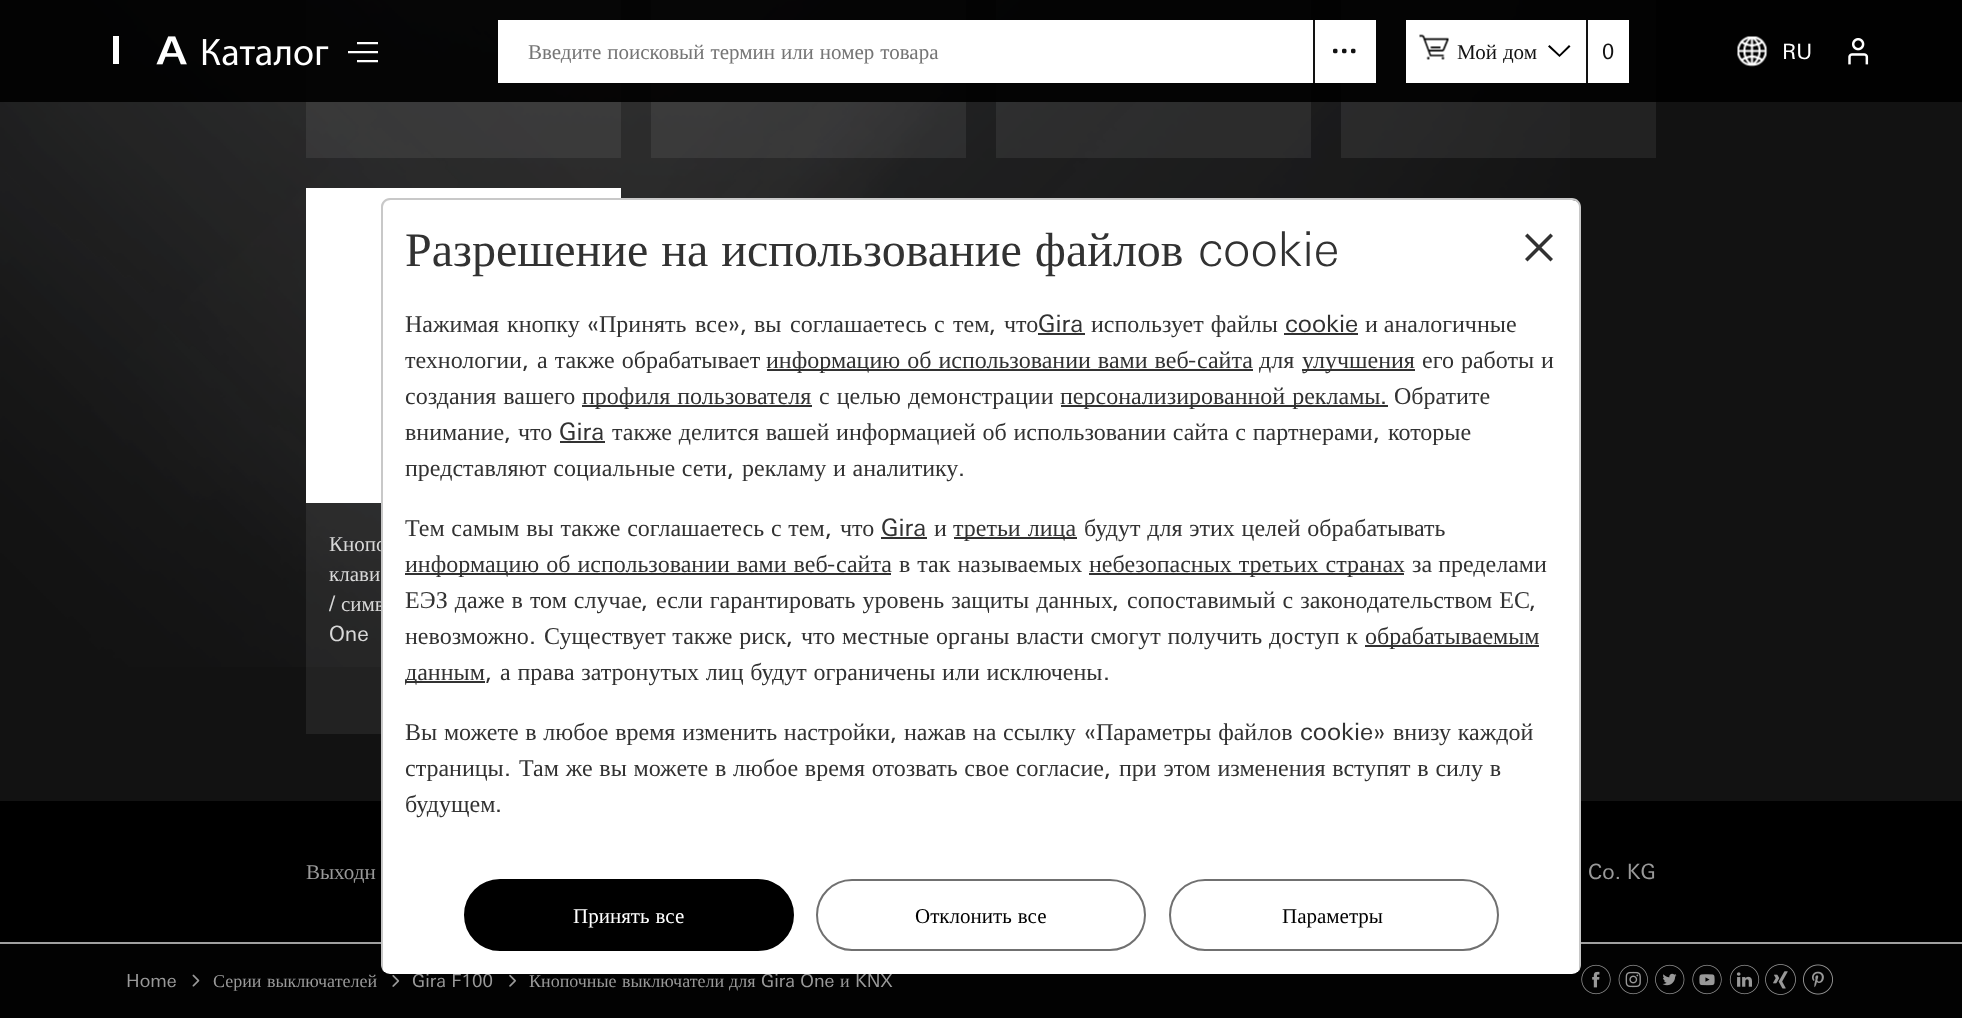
<?xml version="1.0" encoding="UTF-8"?>
<svg xmlns="http://www.w3.org/2000/svg" xmlns:xlink="http://www.w3.org/1999/xlink" width="1962" height="1018">
  <defs>
    <clipPath id="clip1"><rect x="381" y="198" width="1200" height="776" rx="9" /></clipPath>
    <clipPath id="clip2"><rect x="329" y="528" width="270" height="191" /></clipPath>
    <clipPath id="clip3"><rect x="381" y="198" width="1200" height="776" rx="9" /></clipPath>
  </defs>
  <rect width="100%" height="100%" fill="#121212" />
  <image x="0" y="0" width="1570" height="667" xlink:href="image1.png" />
  <rect x="306" width="315" height="158" fill="#ffffff" fill-opacity="0.07" />
  <rect x="651" width="315" height="158" fill="#ffffff" fill-opacity="0.07" />
  <rect x="996" width="315" height="158" fill="#ffffff" fill-opacity="0.07" />
  <rect x="1341" width="315" height="158" fill="#ffffff" fill-opacity="0.07" />
  <rect width="1962" height="102" fill="#000000" fill-opacity="0.9" />
  <image x="113" y="36" width="216" height="30" xlink:href="image2.png" />
  <image x="348" y="42" width="30" height="21" xlink:href="image3.png" />
  <rect x="498" y="20" width="878" height="63" fill="#ffffff" />
  <image x="1333" y="48" width="23" height="6" xlink:href="image4.png" />
  <rect x="1313" y="20" width="2" height="63" fill="#121212" />
  <rect x="1406" y="20" width="223" height="63" fill="#ffffff" />
  <image x="1419" y="34" width="30" height="26" xlink:href="image5.png" />
  <path d="M 1559.5 54.5 l -10 -9.5 l -1.5 1.5 l 11.5 10.5 l 11 -10.5 l -1.5 -1.5 z" fill="#000000" />
  <rect x="1586" y="20" width="2" height="63" fill="#121212" />
  <image x="1737" y="36" width="31" height="31" xlink:href="image6.png" />
  <image x="1848" y="38" width="21" height="27" xlink:href="image7.png" />
  <rect x="306" y="188" width="315" height="315" fill="#ffffff" />
  <rect x="306" y="503" width="75" height="231" fill="#ffffff" fill-opacity="0.07" />
  <rect y="801" width="1962" height="141" fill="#000000" />
  <rect y="942" width="1962" height="2" fill="#a0a0a0" />
  <rect y="944" width="1962" height="74" fill="#020202" />
  <image x="392" y="975" width="8" height="12" xlink:href="image9.png" />
  <image x="509" y="974" width="7" height="13" xlink:href="image10.png" />
  <image x="1581" y="964" width="30" height="31" xlink:href="image11.png" />
  <g clip-path="url(#clip1)">
    <rect x="381" y="206" width="1200" height="810" rx="9" fill="#000000" fill-opacity="0.5" filter="blur(11px)" />
  </g>
  <image x="192" y="974" width="8" height="13" xlink:href="image8.png" />
  <image x="1618" y="964" width="30" height="31" xlink:href="image12.png" />
  <image x="1655" y="964" width="30" height="31" xlink:href="image13.png" />
  <image x="1692" y="964" width="30" height="31" xlink:href="image14.png" />
  <image x="1729" y="964" width="31" height="31" xlink:href="image15.png" />
  <image x="1765" y="964" width="31" height="31" xlink:href="image16.png" />
  <image x="1803" y="964" width="30" height="31" xlink:href="image17.png" />
  <text x="528" y="59" word-spacing="0.75" style="font-family: Liberation Serif; font-size: 21px; fill: #757575">Введите поисковый термин или номер товара</text>
  <text x="1457" y="59" word-spacing="0.75" style="font-family: Liberation Serif; font-size: 21px; fill: #121212">Мой дом</text>
  <text x="1602" y="59" style="font-family: 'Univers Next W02'; font-size: 21px; fill: #121212">0</text>
  <text x="1782" y="59" style="font-family: 'Univers Next W02'; font-size: 21px; fill: #ffffff">RU</text>
  <text x="329" y="551" word-spacing="0.75" style="font-family: Liberation Serif; font-size: 21px; fill: #d8d8d8">Кнопо</text>
  <text x="329" y="581" word-spacing="1" style="font-family: Liberation Serif; font-size: 21px; fill: #d8d8d8">клави</text>
  <g clip-path="url(#clip2)">
    <text x="329" y="611" style="font-family: 'Univers Next W02'; font-size: 21px; fill: #d8d8d8">/</text>
  </g>
  <text x="341" y="611" style="font-family: Liberation Serif; font-size: 21px; fill: #d8d8d8">симв</text>
  <text x="329" y="641" style="font-family: 'Univers Next W02'; font-size: 21px; fill: #d8d8d8">One</text>
  <text x="306" y="879" word-spacing="0.75" style="font-family: Liberation Serif; font-size: 21px; fill: #999999">Выходн</text>
  <text x="1588" y="879" style="font-family: 'Univers Next W02'; font-size: 21px; fill: #999999">Co. KG</text>
  <text x="126" y="987" style="font-family: 'Univers Next W02'; font-size: 18px; fill: #999999">Home</text>
  <text x="213" y="987" word-spacing="1" style="font-family: Liberation Serif; font-size: 18px; fill: #999999">Серии выключателей</text>
  <text x="412" y="987" style="font-family: 'Univers Next W02'; font-size: 18px; fill: #999999">Gira F100</text>
  <text x="529" y="987" style="font-family: Liberation Serif; font-size: 18px; fill: #999999">Кнопочные</text>
  <text x="622" y="987" style="font-family: Liberation Serif; font-size: 18px; fill: #999999">выключатели</text>
  <text x="729" y="987" style="font-family: Liberation Serif; font-size: 18px; fill: #999999">для</text>
  <text x="761" y="987" style="font-family: 'Univers Next W02'; font-size: 18px; fill: #999999">Gira One</text>
  <g clip-path="url(#clip3)">
    <path d="M 391 200 h 1181 c 4.5 0 8 3.5 8 8 v 766 h -1197 v -766 c 0 -4.5 3.5 -8 8 -8 z" fill="#ffffff" />
  </g>
  <path d="M 390 198 c -5 0 -9 4 -9 9 v 758 c 0 2 1 4 2 6 v -764 c 0 -4 3 -7 7 -7 h 1182 c 4 0 7 3 7 7 v 764 c 1 -2 2 -4 2 -6 v -758 c 0 -5 -4 -9 -9 -9 z" fill="#c8c8c8" />
  <rect x="1170" y="880" width="328" height="70" rx="35" fill="none" stroke="#707070" stroke-width="2" />
  <text x="1282" y="923" style="font-family: Liberation Serif; font-size: 21px; fill: #000000">Параметры</text>
  <rect x="817" y="880" width="328" height="70" rx="35" fill="none" stroke="#707070" stroke-width="2" />
  <text x="915" y="923" word-spacing="0.75" style="font-family: Liberation Serif; font-size: 21px; fill: #000000">Отклонить все</text>
  <rect x="465" y="880" width="328" height="70" rx="35" fill="#000000" stroke="#000000" stroke-width="2" />
  <text x="573" y="923" word-spacing="0.75" style="font-family: Liberation Serif; font-size: 21px; fill: #ffffff">Принять все</text>
  <path d="M 1527.5 233.5 l 25.5 25.5 l -2.5 2.5 l -25.5 -25.5 z" fill="#323232" />
  <path d="M 1525 259 l 25.5 -25.5 l 2.5 2.5 l -25.5 25.5 z" fill="#323232" />
  <text x="495" y="812" style="font-family: 'Univers Next W02'; font-size: 24px; fill: #323232">.</text>
  <text x="405" y="812" style="font-family: Liberation Serif; font-size: 24px; fill: #323232">будущем</text>
  <text x="1119" y="776" word-spacing="0.75" style="font-family: Liberation Serif; font-size: 24px; fill: #323232">при этом изменения вступят в силу в</text>
  <text x="1104" y="776" style="font-family: 'Univers Next W02'; font-size: 24px; fill: #323232">,</text>
  <text x="519" y="776" word-spacing="0.75" style="font-family: Liberation Serif; font-size: 24px; fill: #323232">Там же вы можете в любое время отозвать свое согласие</text>
  <text x="504" y="776" style="font-family: 'Univers Next W02'; font-size: 24px; fill: #323232">.</text>
  <text x="405" y="776" style="font-family: Liberation Serif; font-size: 24px; fill: #323232">страницы</text>
  <text x="1393" y="740" word-spacing="0.75" style="font-family: Liberation Serif; font-size: 24px; fill: #323232">внизу каждой</text>
  <text x="1300" y="740" style="font-family: 'Univers Next W02'; font-size: 24px; fill: #323232">cookie»</text>
  <text x="1096" y="740" word-spacing="0.75" style="font-family: Liberation Serif; font-size: 24px; fill: #323232">Параметры файлов</text>
  <text x="1084" y="740" style="font-family: 'Univers Next W02'; font-size: 24px; fill: #323232">«</text>
  <text x="904" y="740" word-spacing="0.75" style="font-family: Liberation Serif; font-size: 24px; fill: #323232">нажав на ссылку</text>
  <text x="890" y="740" style="font-family: 'Univers Next W02'; font-size: 24px; fill: #323232">,</text>
  <text x="405" y="740" word-spacing="0.75" style="font-family: Liberation Serif; font-size: 24px; fill: #323232">Вы можете в любое время изменить настройки</text>
  <text x="1103" y="680" style="font-family: 'Univers Next W02'; font-size: 24px; fill: #323232">.</text>
  <text x="500" y="680" word-spacing="0.75" style="font-family: Liberation Serif; font-size: 24px; fill: #323232">а права затронутых лиц будут ограничены или исключены</text>
  <text x="485" y="680" style="font-family: 'Univers Next W02'; font-size: 24px; fill: #323232">,</text>
  <rect x="405" y="681" width="80" height="2" fill="#323232" />
  <text x="405" y="680" style="font-family: Liberation Serif; font-size: 24px; fill: #323232">данным</text>
  <rect x="1365" y="645" width="174" height="2" fill="#323232" />
  <text x="1365" y="644" style="font-family: Liberation Serif; font-size: 24px; fill: #323232">обрабатываемым</text>
  <text x="801" y="644" word-spacing="0.75" style="font-family: Liberation Serif; font-size: 24px; fill: #323232">что местные органы власти смогут получить доступ к</text>
  <text x="786" y="644" style="font-family: 'Univers Next W02'; font-size: 24px; fill: #323232">,</text>
  <text x="544" y="644" word-spacing="0.75" style="font-family: Liberation Serif; font-size: 24px; fill: #323232">Существует также риск</text>
  <text x="529" y="644" style="font-family: 'Univers Next W02'; font-size: 24px; fill: #323232">.</text>
  <text x="405" y="644" style="font-family: Liberation Serif; font-size: 24px; fill: #323232">невозможно</text>
  <text x="1529" y="608" style="font-family: 'Univers Next W02'; font-size: 24px; fill: #323232">,</text>
  <text x="1127" y="608" word-spacing="1" style="font-family: Liberation Serif; font-size: 24px; fill: #323232">сопоставимый с законодательством ЕС</text>
  <text x="1112" y="608" style="font-family: 'Univers Next W02'; font-size: 24px; fill: #323232">,</text>
  <text x="656" y="608" word-spacing="1" style="font-family: Liberation Serif; font-size: 24px; fill: #323232">если гарантировать уровень защиты данных</text>
  <text x="641" y="608" style="font-family: 'Univers Next W02'; font-size: 24px; fill: #323232">,</text>
  <text x="405" y="608" word-spacing="1" style="font-family: Liberation Serif; font-size: 24px; fill: #323232">ЕЭЗ даже в том случае</text>
  <text x="1412" y="572" style="font-family: Liberation Serif; font-size: 24px; fill: #323232">за пределами</text>
  <rect x="1089" y="573" width="315" height="2" fill="#323232" />
  <text x="1089" y="572" word-spacing="1" style="font-family: Liberation Serif; font-size: 24px; fill: #323232">небезопасных третьих странах</text>
  <text x="899" y="572" word-spacing="1" style="font-family: Liberation Serif; font-size: 24px; fill: #323232">в так называемых</text>
  <text x="836" y="572" style="font-family: Liberation Serif; font-size: 24px; fill: #323232">сайта</text>
  <text x="827" y="572" style="font-family: 'Univers Next W02'; font-size: 24px; fill: #323232">-</text>
  <rect x="405" y="573" width="486" height="2" fill="#323232" />
  <text x="405" y="572" word-spacing="1" style="font-family: Liberation Serif; font-size: 24px; fill: #323232">информацию об использовании вами веб</text>
  <text x="1084" y="536" word-spacing="0.75" style="font-family: Liberation Serif; font-size: 24px; fill: #323232">будут для этих целей обрабатывать</text>
  <rect x="954" y="537" width="123" height="2" fill="#323232" />
  <text x="953" y="536" word-spacing="1" style="font-family: Liberation Serif; font-size: 24px; fill: #323232">третьи лица</text>
  <text x="934" y="536" style="font-family: Liberation Serif; font-size: 24px; fill: #323232">и</text>
  <text x="881" y="536" style="font-family: 'Univers Next W02'; font-size: 24px; fill: #323232">Gira</text>
  <rect x="881" y="537" width="46" height="2" fill="#323232" />
  <text x="840" y="536" style="font-family: Liberation Serif; font-size: 24px; fill: #323232">что</text>
  <text x="825" y="536" style="font-family: 'Univers Next W02'; font-size: 24px; fill: #323232">,</text>
  <text x="405" y="536" word-spacing="0.75" style="font-family: Liberation Serif; font-size: 24px; fill: #323232">Тем самым вы также соглашаетесь с тем</text>
  <text x="958" y="476" style="font-family: 'Univers Next W02'; font-size: 24px; fill: #323232">.</text>
  <text x="742" y="476" word-spacing="0.75" style="font-family: Liberation Serif; font-size: 24px; fill: #323232">рекламу и аналитику</text>
  <text x="727" y="476" style="font-family: 'Univers Next W02'; font-size: 24px; fill: #323232">,</text>
  <text x="405" y="476" word-spacing="0.75" style="font-family: Liberation Serif; font-size: 24px; fill: #323232">представляют социальные сети</text>
  <text x="1388" y="440" style="font-family: Liberation Serif; font-size: 24px; fill: #323232">которые</text>
  <text x="1373" y="440" style="font-family: 'Univers Next W02'; font-size: 24px; fill: #323232">,</text>
  <text x="612" y="440" word-spacing="0.75" style="font-family: Liberation Serif; font-size: 24px; fill: #323232">также делится вашей информацией об использовании сайта с партнерами</text>
  <text x="559" y="440" style="font-family: 'Univers Next W02'; font-size: 24px; fill: #323232">Gira</text>
  <rect x="560" y="441" width="45" height="2" fill="#323232" />
  <text x="518" y="440" style="font-family: Liberation Serif; font-size: 24px; fill: #323232">что</text>
  <text x="504" y="440" style="font-family: 'Univers Next W02'; font-size: 24px; fill: #323232">,</text>
  <text x="405" y="440" style="font-family: Liberation Serif; font-size: 24px; fill: #323232">внимание</text>
  <text x="1394" y="404" style="font-family: Liberation Serif; font-size: 24px; fill: #323232">Обратите</text>
  <text x="1380" y="404" style="font-family: 'Univers Next W02'; font-size: 24px; fill: #323232">.</text>
  <rect x="1061" y="405" width="327" height="2" fill="#323232" />
  <text x="1060" y="404" word-spacing="1" style="font-family: Liberation Serif; font-size: 24px; fill: #323232">персонализированной рекламы</text>
  <text x="819" y="404" word-spacing="1" style="font-family: Liberation Serif; font-size: 24px; fill: #323232">с целью демонстрации</text>
  <rect x="582" y="405" width="230" height="2" fill="#323232" />
  <text x="582" y="404" word-spacing="1" style="font-family: Liberation Serif; font-size: 24px; fill: #323232">профиля пользователя</text>
  <text x="405" y="404" word-spacing="1" style="font-family: Liberation Serif; font-size: 24px; fill: #323232">создания вашего</text>
  <text x="1422" y="368" word-spacing="1" style="font-family: Liberation Serif; font-size: 24px; fill: #323232">его работы и</text>
  <rect x="1302" y="369" width="113" height="2" fill="#323232" />
  <text x="1302" y="368" style="font-family: Liberation Serif; font-size: 24px; fill: #323232">улучшения</text>
  <text x="1259" y="368" style="font-family: Liberation Serif; font-size: 24px; fill: #323232">для</text>
  <text x="1197" y="368" style="font-family: Liberation Serif; font-size: 24px; fill: #323232">сайта</text>
  <text x="1188" y="368" style="font-family: 'Univers Next W02'; font-size: 24px; fill: #323232">-</text>
  <rect x="767" y="369" width="486" height="2" fill="#323232" />
  <text x="766" y="368" word-spacing="1" style="font-family: Liberation Serif; font-size: 24px; fill: #323232">информацию об использовании вами веб</text>
  <text x="537" y="368" word-spacing="1" style="font-family: Liberation Serif; font-size: 24px; fill: #323232">а также обрабатывает</text>
  <text x="522" y="368" style="font-family: 'Univers Next W02'; font-size: 24px; fill: #323232">,</text>
  <text x="405" y="368" style="font-family: Liberation Serif; font-size: 24px; fill: #323232">технологии</text>
  <text x="1365" y="332" style="font-family: Liberation Serif; font-size: 24px; fill: #323232">и аналогичные</text>
  <text x="1285" y="332" style="font-family: 'Univers Next W02'; font-size: 24px; fill: #323232">cookie</text>
  <rect x="1284" y="333" width="74" height="2" fill="#323232" />
  <text x="1091" y="332" word-spacing="1" style="font-family: Liberation Serif; font-size: 24px; fill: #323232">использует файлы</text>
  <text x="1038" y="332" style="font-family: 'Univers Next W02'; font-size: 24px; fill: #323232">Gira</text>
  <rect x="1038" y="333" width="47" height="2" fill="#323232" />
  <text x="1004" y="332" style="font-family: Liberation Serif; font-size: 24px; fill: #323232">что</text>
  <text x="989" y="332" style="font-family: 'Univers Next W02'; font-size: 24px; fill: #323232">,</text>
  <text x="953" y="332" style="font-family: Liberation Serif; font-size: 24px; fill: #323232">тем</text>
  <text x="934" y="332" style="font-family: Liberation Serif; font-size: 24px; fill: #323232">с</text>
  <text x="790" y="332" style="font-family: Liberation Serif; font-size: 24px; fill: #323232">соглашаетесь</text>
  <text x="754" y="332" style="font-family: Liberation Serif; font-size: 24px; fill: #323232">вы</text>
  <text x="728" y="332" style="font-family: 'Univers Next W02'; font-size: 24px; fill: #323232">»,</text>
  <text x="695" y="332" style="font-family: Liberation Serif; font-size: 24px; fill: #323232">все</text>
  <text x="599" y="332" style="font-family: Liberation Serif; font-size: 24px; fill: #323232">Принять</text>
  <text x="587" y="332" style="font-family: 'Univers Next W02'; font-size: 24px; fill: #323232">«</text>
  <text x="507" y="332" style="font-family: Liberation Serif; font-size: 24px; fill: #323232">кнопку</text>
  <text x="405" y="332" style="font-family: Liberation Serif; font-size: 24px; fill: #323232">Нажимая</text>
  <text x="1198" y="266" style="font-family: 'Univers Next W02'; font-size: 48px; font-weight: 300; fill: #323232">cookie</text>
  <text x="405" y="266" word-spacing="1" style="font-family: Liberation Serif; font-size: 48px; fill: #323232">Разрешение на использование файлов</text>
  <text x="840" y="987" style="font-family: Liberation Serif; font-size: 18px; fill: #999999">и</text>
  <text x="855" y="987" style="font-family: 'Univers Next W02'; font-size: 18px; fill: #999999">KNX</text>
</svg>
